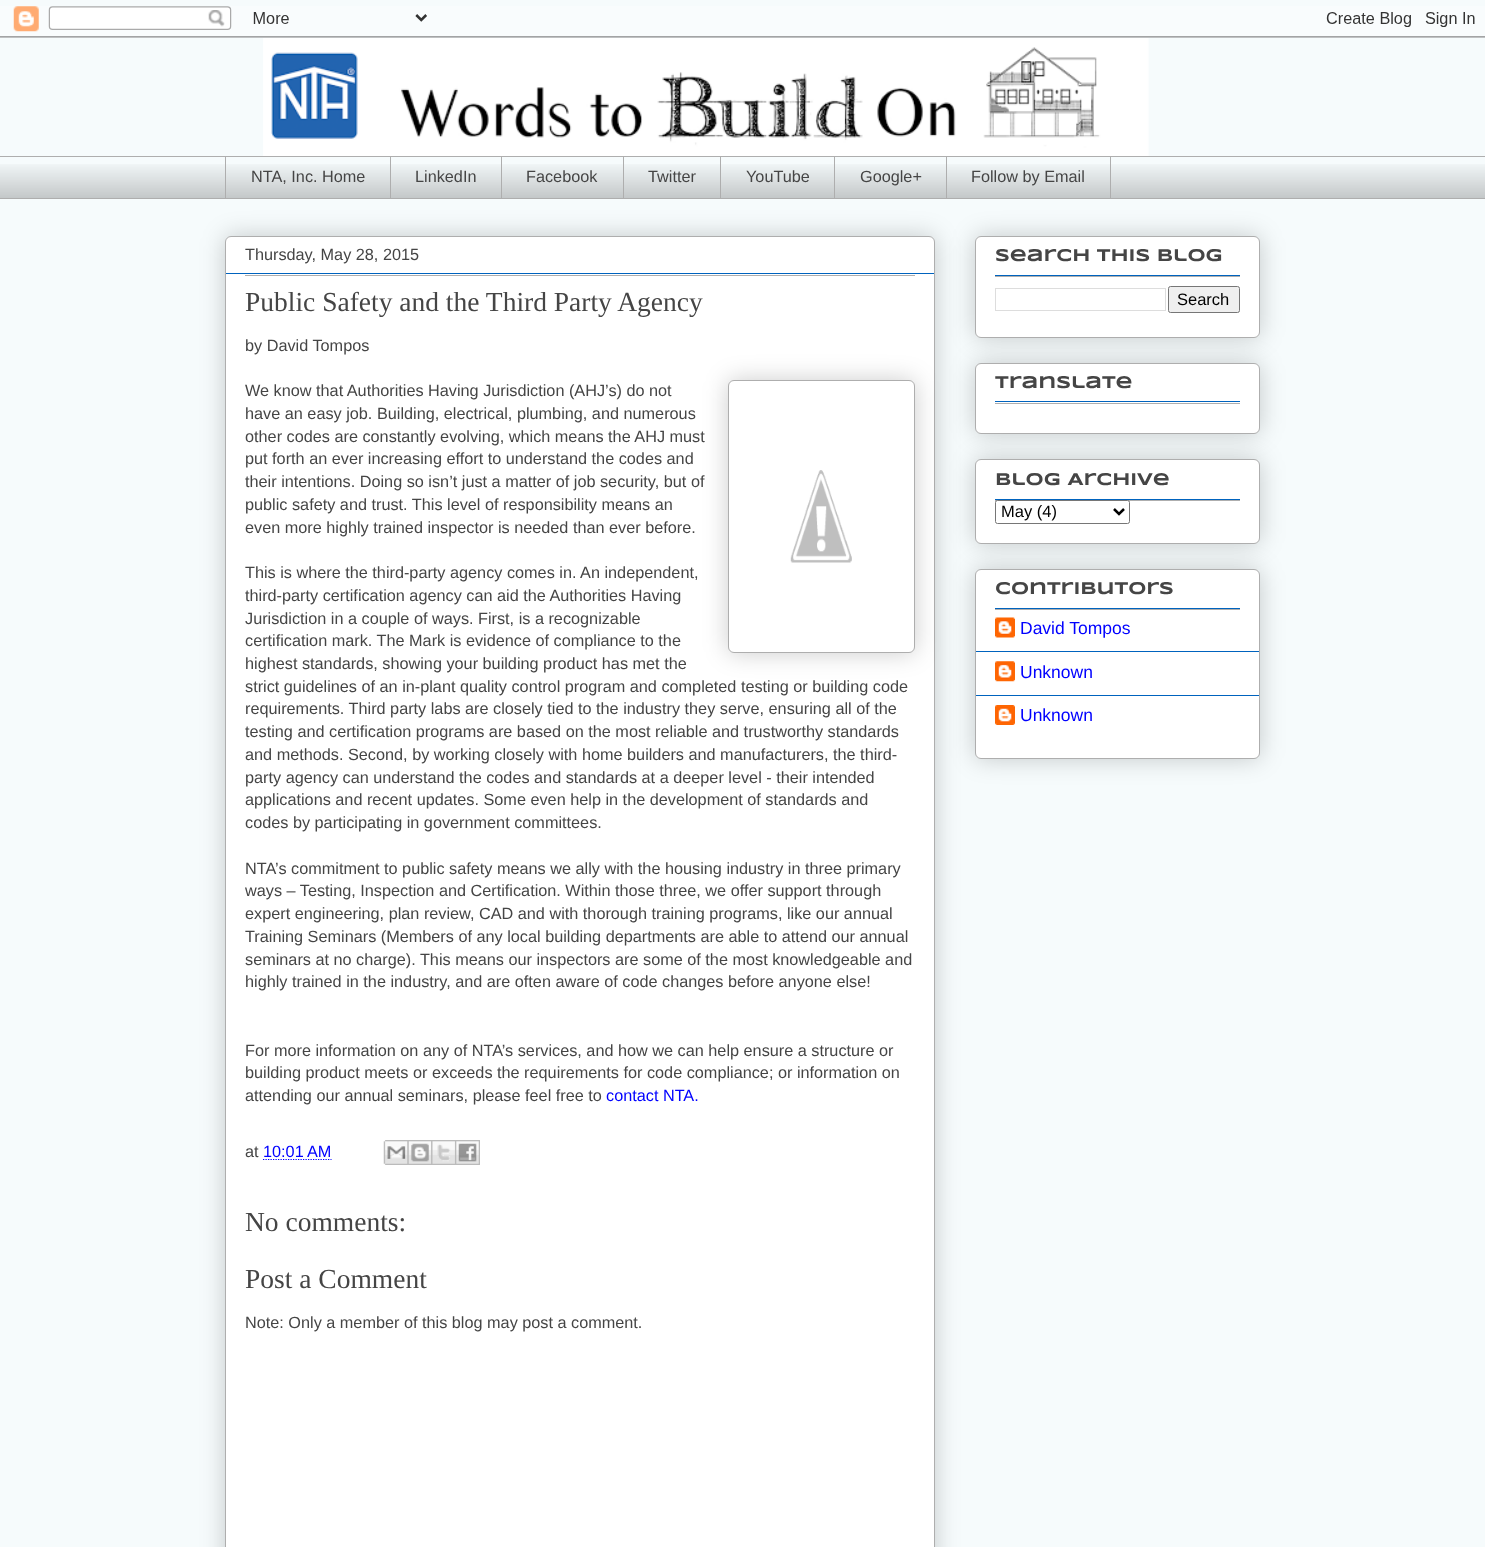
<?xml version="1.0" encoding="UTF-8"?>
<svg xmlns="http://www.w3.org/2000/svg" xmlns:xlink="http://www.w3.org/1999/xlink" width="1485" height="1547">
  <rect width="100%" height="100%" fill="#f6fbfc" />
  <image x="0" y="6" width="1485" height="32" xlink:href="image1.png" />
  <image x="263" y="38" width="886" height="118" xlink:href="image2.png" />
  <image x="0" y="164" width="1485" height="34" xlink:href="image3.png" />
  <rect y="156" width="1485" height="1" fill="#aeaeae" />
  <rect x="225" y="156" width="1" height="43" fill="#aeaeae" />
  <rect x="390" y="156" width="1" height="43" fill="#aeaeae" />
  <rect x="501" y="156" width="1" height="43" fill="#aeaeae" />
  <rect x="623" y="156" width="1" height="43" fill="#aeaeae" />
  <rect x="720" y="156" width="1" height="43" fill="#aeaeae" />
  <rect x="834" y="156" width="1" height="43" fill="#aeaeae" />
  <rect x="946.5" y="156.5" width="164" height="42" fill="none" stroke="#aeaeae" />
  <rect y="198" width="1485" height="1" fill="#aeaeae" />
  <rect x="225" y="236" width="710" height="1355" rx="6" fill="#000000" fill-opacity="0.2" filter="blur(12.5px)" />
  <rect x="225.5" y="236.5" width="709" height="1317" rx="5.5" fill="#ffffff" stroke="#aeaeae" />
  <rect x="226" y="273" width="708" height="1" fill="#0063be" />
  <rect x="245" y="275" width="670" height="1" fill="#aeaeae" />
  <rect x="728" y="380" width="187" height="273" rx="6" fill="#000000" fill-opacity="0.2" filter="blur(12.5px)" />
  <rect x="728.5" y="380.5" width="186" height="272" rx="5.5" fill="#ffffff" stroke="#aeaeae" />
  <image x="790" y="470" width="62" height="93" xlink:href="image4.png" />
  <path d="M 263 1159.5 h 68.5" fill="none" stroke="#0000ff" stroke-width="1.2" stroke-dasharray="1.25 1.25" />
  <image x="383" y="1140" width="25" height="25" xlink:href="image5.png" />
  <image x="407" y="1140" width="25" height="25" xlink:href="image6.png" />
  <image x="431" y="1140" width="24" height="25" xlink:href="image7.png" />
  <image x="455" y="1140" width="25" height="25" xlink:href="image8.png" />
  <rect x="975" y="236" width="285" height="102" rx="6" fill="#000000" fill-opacity="0.2" filter="blur(12.5px)" />
  <rect x="975.5" y="236.5" width="284" height="101" rx="5.5" fill="#ffffff" stroke="#aeaeae" />
  <rect x="995" y="275" width="245" height="1" fill="#0063be" />
  <rect x="995" y="276" width="245" height="1" fill="#aeaeae" />
  <rect x="995.5" y="288.5" width="170" height="22" fill="none" stroke="#dddddd" />
  <rect x="1168.5" y="286.5" width="71" height="26" rx="2" fill="#efefef" stroke="#767676" />
  <rect x="975" y="363" width="285" height="71" rx="6" fill="#000000" fill-opacity="0.2" filter="blur(12.5px)" />
  <rect x="975.5" y="363.5" width="284" height="70" rx="5.5" fill="#ffffff" stroke="#aeaeae" />
  <rect x="995" y="401" width="245" height="1" fill="#0063be" />
  <rect x="995" y="403" width="245" height="1" fill="#aeaeae" />
  <rect x="975" y="459" width="285" height="85" rx="6" fill="#000000" fill-opacity="0.2" filter="blur(12.5px)" />
  <rect x="975.5" y="459.5" width="284" height="84" rx="5.5" fill="#ffffff" stroke="#aeaeae" />
  <rect x="995" y="499" width="245" height="1" fill="#0063be" />
  <rect x="995" y="500" width="245" height="1" fill="#aeaeae" />
  <rect x="995.5" y="500.5" width="134" height="23" rx="2" fill="#ffffff" stroke="#767676" />
  <path d="M 1114 509 l 5 5 l 5 -5" fill="none" stroke="#000000" stroke-width="2.5" />
  <rect x="975" y="569" width="285" height="190" rx="6" fill="#000000" fill-opacity="0.2" filter="blur(12.5px)" />
  <rect x="975.5" y="569.5" width="284" height="189" rx="5.5" fill="#ffffff" stroke="#aeaeae" />
  <rect x="995" y="608" width="245" height="1" fill="#0063be" />
  <rect x="995" y="609" width="245" height="1" fill="#aeaeae" />
  <rect x="976" y="651" width="283" height="1" fill="#0063be" />
  <image x="995" y="617" width="20" height="21" xlink:href="image9.png" />
  <rect x="976" y="695" width="283" height="1" fill="#0063be" />
  <image x="995" y="661" width="20" height="21" xlink:href="image10.png" />
  <image x="995" y="705" width="20" height="20" xlink:href="image11.png" />
  <text x="251" y="182" style="font-family: Liberation Sans; font-size: 16.25px; fill: #454545">NTA, Inc. Home</text>
  <text x="415" y="182" style="font-family: Liberation Sans; font-size: 16.25px; fill: #454545">LinkedIn</text>
  <text x="526" y="182" style="font-family: Liberation Sans; font-size: 16.25px; fill: #454545">Facebook</text>
  <text x="648" y="182" style="font-family: Liberation Sans; font-size: 16.25px; fill: #454545">Twitter</text>
  <text x="746" y="182" style="font-family: Liberation Sans; font-size: 16.25px; fill: #454545">YouTube</text>
  <text x="860" y="182" style="font-family: Liberation Sans; font-size: 16.25px; fill: #454545">Google+</text>
  <text x="971" y="182" style="font-family: Liberation Sans; font-size: 16.25px; fill: #454545">Follow by Email</text>
  <text x="245" y="260" style="font-family: Liberation Sans; font-size: 16.25px; fill: #454545">Thursday, May 28, 2015</text>
  <text x="245" y="311" style="font-family: Liberation Serif; font-size: 27.5px; fill: #454545">Public Safety and the Third Party Agency</text>
  <text x="245" y="351" style="font-family: Liberation Sans; font-size: 16.25px; fill: #454545">by David Tompos</text>
  <text x="245" y="396" style="font-family: Liberation Sans; font-size: 16.25px; fill: #454545">We know that Authorities Having Jurisdiction (AHJ’s) do not</text>
  <text x="245" y="419" style="font-family: Liberation Sans; font-size: 16.25px; fill: #454545">have an easy job. Building, electrical, plumbing, and numerous</text>
  <text x="245" y="442" style="font-family: Liberation Sans; font-size: 16.25px; fill: #454545">other codes are constantly evolving, which means the AHJ must</text>
  <text x="245" y="464" style="font-family: Liberation Sans; font-size: 16.25px; fill: #454545">put forth an ever increasing effort to understand the codes and</text>
  <text x="245" y="487" style="font-family: Liberation Sans; font-size: 16.25px; fill: #454545">their intentions. Doing so isn’t just a matter of job security, but of</text>
  <text x="245" y="510" style="font-family: Liberation Sans; font-size: 16.25px; fill: #454545">public safety and trust. This level of responsibility means an</text>
  <text x="245" y="533" style="font-family: Liberation Sans; font-size: 16.25px; fill: #454545">even more highly trained inspector is needed than ever before.</text>
  <text x="245" y="578" style="font-family: Liberation Sans; font-size: 16.25px; fill: #454545">This is where the third-party agency comes in. An independent,</text>
  <text x="245" y="601" style="font-family: Liberation Sans; font-size: 16.25px; fill: #454545">third-party certification agency can aid the Authorities Having</text>
  <text x="245" y="624" style="font-family: Liberation Sans; font-size: 16.25px; fill: #454545">Jurisdiction in a couple of ways. First, is a recognizable</text>
  <text x="245" y="646" style="font-family: Liberation Sans; font-size: 16.25px; fill: #454545">certification mark. The Mark is evidence of compliance to the</text>
  <text x="245" y="669" style="font-family: Liberation Sans; font-size: 16.25px; fill: #454545">highest standards, showing your building product has met the</text>
  <text x="245" y="692" style="font-family: Liberation Sans; font-size: 16.25px; fill: #454545">strict guidelines of an in-plant quality control program and completed testing or building code</text>
  <text x="245" y="714" style="font-family: Liberation Sans; font-size: 16.25px; fill: #454545">requirements. Third party labs are closely tied to the industry they serve, ensuring all of the</text>
  <text x="245" y="737" style="font-family: Liberation Sans; font-size: 16.25px; fill: #454545">testing and certification programs are based on the most reliable and trustworthy standards</text>
  <text x="245" y="760" style="font-family: Liberation Sans; font-size: 16.25px; fill: #454545">and methods. Second, by working closely with home builders and manufacturers, the third-</text>
  <text x="245" y="783" style="font-family: Liberation Sans; font-size: 16.25px; fill: #454545">party agency can understand the codes and standards at a deeper level - their intended</text>
  <text x="245" y="805" style="font-family: Liberation Sans; font-size: 16.25px; fill: #454545">applications and recent updates. Some even help in the development of standards and</text>
  <text x="245" y="828" style="font-family: Liberation Sans; font-size: 16.25px; fill: #454545">codes by participating in government committees.</text>
  <text x="245" y="874" style="font-family: Liberation Sans; font-size: 16.25px; fill: #454545">NTA’s commitment to public safety means we ally with the housing industry in three primary</text>
  <text x="245" y="896" style="font-family: Liberation Sans; font-size: 16.25px; fill: #454545">ways – Testing, Inspection and Certification. Within those three, we offer support through</text>
  <text x="245" y="919" style="font-family: Liberation Sans; font-size: 16.25px; fill: #454545">expert engineering, plan review, CAD and with thorough training programs, like our annual</text>
  <text x="245" y="942" style="font-family: Liberation Sans; font-size: 16.25px; fill: #454545">Training Seminars (Members of any local building departments are able to attend our annual</text>
  <text x="245" y="965" style="font-family: Liberation Sans; font-size: 16.25px; fill: #454545">seminars at no charge). This means our inspectors are some of the most knowledgeable and</text>
  <text x="245" y="987" style="font-family: Liberation Sans; font-size: 16.25px; fill: #454545">highly trained in the industry, and are often aware of code changes before anyone else!</text>
  <text x="245" y="1056" style="font-family: Liberation Sans; font-size: 16.25px; fill: #454545">For more information on any of NTA’s services, and how we can help ensure a structure or</text>
  <text x="245" y="1078" style="font-family: Liberation Sans; font-size: 16.25px; fill: #454545">building product meets or exceeds the requirements for code compliance; or information on</text>
  <text x="245" y="1101" style="font-family: Liberation Sans; font-size: 16.25px; fill: #454545">attending our annual seminars, please feel free to</text>
  <text x="606" y="1101" style="font-family: Liberation Sans; font-size: 16.25px; fill: #0000ff">contact NTA.</text>
  <text x="245" y="1157" style="font-family: Liberation Sans; font-size: 16.25px; fill: #454545">at</text>
  <text x="263" y="1157" style="font-family: Liberation Sans; font-size: 16.25px; fill: #0000ff">10:01 AM</text>
  <text x="245" y="1231" style="font-family: Liberation Serif; font-size: 27.5px; fill: #454545">No comments:</text>
  <text x="245" y="1288" style="font-family: Liberation Serif; font-size: 27.5px; fill: #454545">Post a Comment</text>
  <text x="245" y="1328" style="font-family: Liberation Sans; font-size: 16.25px; fill: #454545">Note: Only a member of this blog may post a comment.</text>
  <text x="995" y="261" style="font-family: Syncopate; font-size: 17.5px; font-weight: bold; fill: #454545">Search This Blog</text>
  <text x="1177" y="305" style="font-family: Liberation Sans; font-size: 16.5px; fill: #000000">Search</text>
  <text x="995" y="388" style="font-family: Syncopate; font-size: 17.5px; font-weight: bold; fill: #454545">Translate</text>
  <text x="995" y="485" style="font-family: Syncopate; font-size: 17.5px; font-weight: bold; fill: #454545">Blog Archive</text>
  <text x="1001" y="517" style="font-family: Liberation Sans; font-size: 16.5px; fill: #000000">May (4)</text>
  <text x="995" y="594" style="font-family: Syncopate; font-size: 17.5px; font-weight: bold; fill: #454545">Contributors</text>
  <text x="1020" y="634" style="font-family: Liberation Sans; font-size: 17.5px; fill: #0000ff">David Tompos</text>
  <text x="1020" y="678" style="font-family: Liberation Sans; font-size: 17.5px; fill: #0000ff">Unknown</text>
  <text x="1020" y="721" style="font-family: Liberation Sans; font-size: 17.5px; fill: #0000ff">Unknown</text>
</svg>
